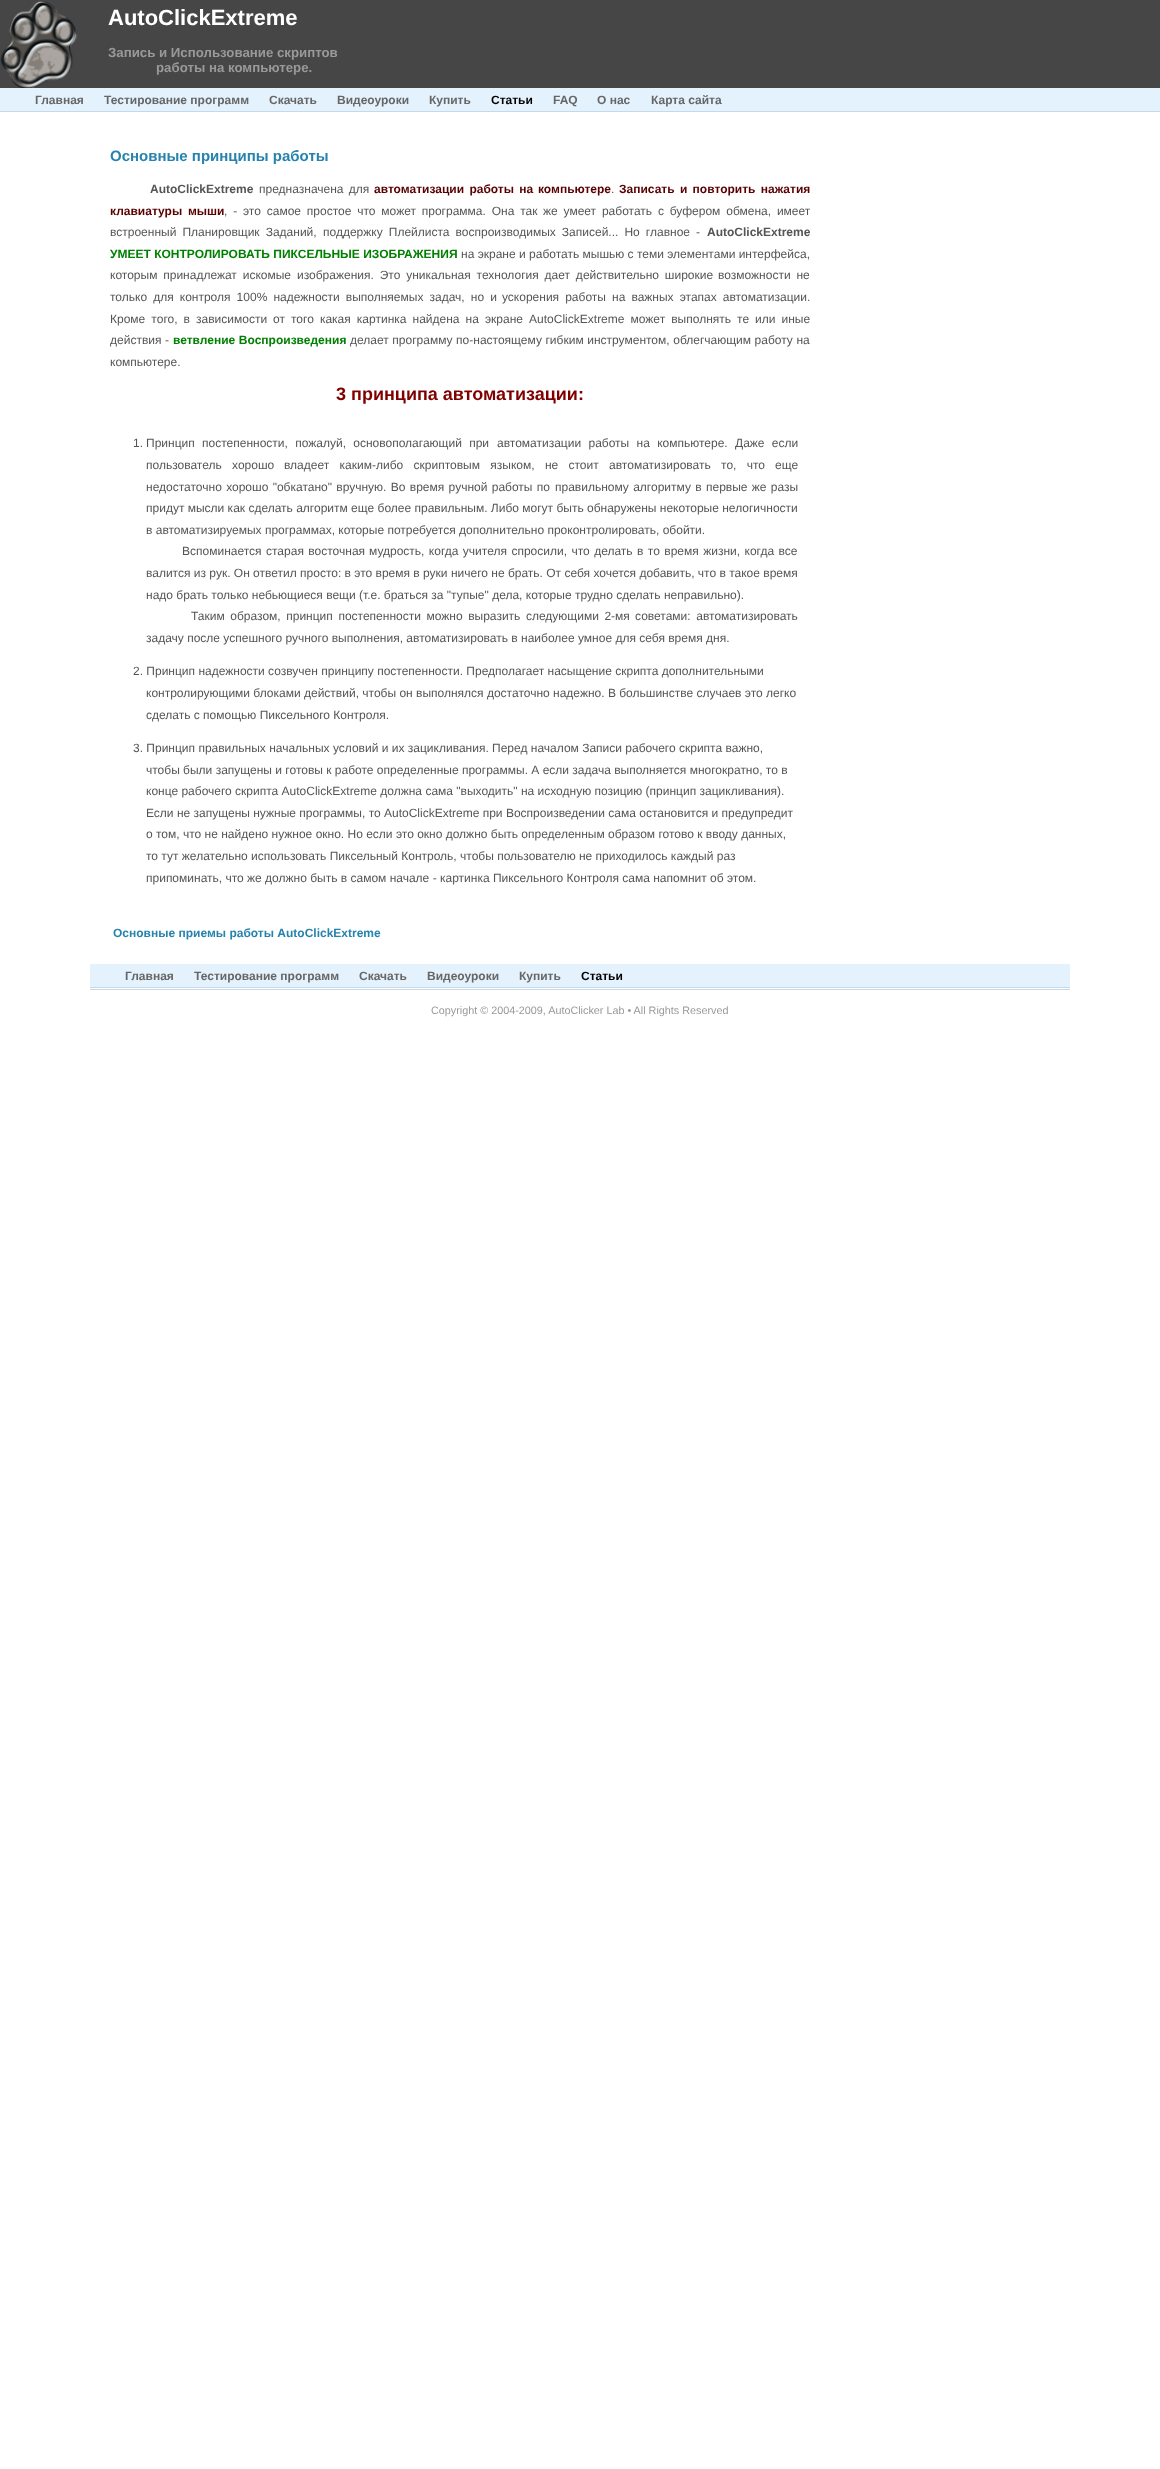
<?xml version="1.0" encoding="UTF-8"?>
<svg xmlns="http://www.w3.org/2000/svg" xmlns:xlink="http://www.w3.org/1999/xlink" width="1160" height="2469">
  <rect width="100%" height="100%" fill="#ffffff" />
  <rect width="1160" height="88" fill="#464646" />
  <image x="0" y="1" width="78" height="87" xlink:href="image1.png" />
  <rect y="88" width="1160" height="23" fill="#e4f2fd" />
  <rect y="111" width="1160" height="1" fill="#c6d9e9" />
  <rect x="90" y="964" width="980" height="23" fill="#e4f2fd" />
  <rect x="90" y="987" width="980" height="1" fill="#c6d9e9" />
  <rect x="90" y="989" width="980" height="1" fill="#c6d9e9" />
  <text x="108" y="25" style="font-family: Liberation Sans; font-size: 22px; font-weight: bold; fill: #ffffff">AutoClickExtreme</text>
  <text x="108" y="57" style="font-family: Liberation Sans; font-size: 13.25px; font-weight: bold; fill: #999999">Запись и Использование скриптов</text>
  <text x="156" y="72" style="font-family: Liberation Sans; font-size: 13.25px; font-weight: bold; fill: #999999">работы на компьютере.</text>
  <text x="35" y="104" style="font-family: Liberation Sans; font-size: 12px; font-weight: bold; fill: #666666">Главная</text>
  <text x="104" y="104" style="font-family: Liberation Sans; font-size: 12px; font-weight: bold; fill: #666666">Тестирование программ</text>
  <text x="269" y="104" style="font-family: Liberation Sans; font-size: 12px; font-weight: bold; fill: #666666">Скачать</text>
  <text x="337" y="104" style="font-family: Liberation Sans; font-size: 12px; font-weight: bold; fill: #666666">Видеоуроки</text>
  <text x="429" y="104" style="font-family: Liberation Sans; font-size: 12px; font-weight: bold; fill: #666666">Купить</text>
  <text x="491" y="104" style="font-family: Liberation Sans; font-size: 12px; font-weight: bold; fill: #000000">Статьи</text>
  <text x="553" y="104" style="font-family: Liberation Sans; font-size: 12px; font-weight: bold; fill: #666666">FAQ</text>
  <text x="597" y="104" style="font-family: Liberation Sans; font-size: 12px; font-weight: bold; fill: #666666">О нас</text>
  <text x="651" y="104" style="font-family: Liberation Sans; font-size: 12px; font-weight: bold; fill: #666666">Карта сайта</text>
  <text x="110" y="161" style="font-family: Liberation Sans; font-size: 15px; font-weight: bold; fill: #2583ad">Основные принципы работы</text>
  <text x="150" y="193" style="font-family: Liberation Sans; font-size: 12px; font-weight: bold; fill: #555555">AutoClickExtreme</text>
  <text x="259" y="193" word-spacing="2" style="font-family: Liberation Sans; font-size: 12px; fill: #555555">предназначена для</text>
  <text x="374" y="193" word-spacing="2" style="font-family: Liberation Sans; font-size: 12px; font-weight: bold; fill: #590000">автоматизации работы на</text>
  <text x="538" y="193" style="font-family: Liberation Sans; font-size: 12px; font-weight: bold; fill: #590000">компьютере</text>
  <text x="611" y="193" style="font-family: Liberation Sans; font-size: 12px; fill: #555555">.</text>
  <text x="619" y="193" word-spacing="2" style="font-family: Liberation Sans; font-size: 12px; font-weight: bold; fill: #590000">Записать и повторить нажатия</text>
  <text x="110" y="215" word-spacing="2.5" style="font-family: Liberation Sans; font-size: 12px; font-weight: bold; fill: #590000">клавиатуры мыши</text>
  <text x="224" y="215" word-spacing="2.5" style="font-family: Liberation Sans; font-size: 12px; fill: #555555">, - это самое простое что может программа. Она так</text>
  <text x="543" y="215" word-spacing="2.5" style="font-family: Liberation Sans; font-size: 12px; fill: #555555">же умеет работать с буфером обмена, имеет</text>
  <text x="110" y="236" word-spacing="2.75" style="font-family: Liberation Sans; font-size: 12px; fill: #555555">встроенный Планировщик Заданий,</text>
  <text x="323" y="236" word-spacing="2.75" style="font-family: Liberation Sans; font-size: 12px; fill: #555555">поддержку Плейлиста воспроизводимых Записей... Но главное -</text>
  <text x="707" y="236" style="font-family: Liberation Sans; font-size: 12px; font-weight: bold; fill: #555555">AutoClickExtreme</text>
  <text x="110" y="258" style="font-family: Liberation Sans; font-size: 12px; font-weight: bold; fill: #008000">УМЕЕТ КОНТРОЛИРОВАТЬ ПИКСЕЛЬНЫЕ ИЗОБРАЖЕНИЯ</text>
  <text x="461" y="258" style="font-family: Liberation Sans; font-size: 12px; fill: #555555">на экране и работать мышью с теми элементами интерфейса,</text>
  <text x="110" y="279" word-spacing="2.5" style="font-family: Liberation Sans; font-size: 12px; fill: #555555">которым принадлежат искомые</text>
  <text x="297" y="279" word-spacing="2.5" style="font-family: Liberation Sans; font-size: 12px; fill: #555555">изображения. Это уникальная технология дает действительно широкие</text>
  <text x="718" y="279" word-spacing="2.5" style="font-family: Liberation Sans; font-size: 12px; fill: #555555">возможности не</text>
  <text x="110" y="301" word-spacing="2.75" style="font-family: Liberation Sans; font-size: 12px; fill: #555555">только для контроля 100% надежности выполняемых задач, но и</text>
  <text x="502" y="301" word-spacing="2.75" style="font-family: Liberation Sans; font-size: 12px; fill: #555555">ускорения работы на важных этапах автоматизации.</text>
  <text x="110" y="323" word-spacing="2.75" style="font-family: Liberation Sans; font-size: 12px; fill: #555555">Кроме того, в зависимости</text>
  <text x="273" y="323" word-spacing="2.75" style="font-family: Liberation Sans; font-size: 12px; fill: #555555">от того какая картинка найдена на экране AutoClickExtreme может выполнять те</text>
  <text x="755" y="323" word-spacing="2.75" style="font-family: Liberation Sans; font-size: 12px; fill: #555555">или иные</text>
  <text x="110" y="344" word-spacing="0.25" style="font-family: Liberation Sans; font-size: 12px; fill: #555555">действия -</text>
  <text x="173" y="344" word-spacing="0.25" style="font-family: Liberation Sans; font-size: 12px; font-weight: bold; fill: #008000">ветвление Воспроизведения</text>
  <text x="350" y="344" word-spacing="0.25" style="font-family: Liberation Sans; font-size: 12px; fill: #555555">делает программу по-настоящему гибким инструментом, облегчающим работу на</text>
  <text x="110" y="366" style="font-family: Liberation Sans; font-size: 12px; fill: #555555">компьютере.</text>
  <text x="336" y="400" style="font-family: Liberation Sans; font-size: 18px; font-weight: bold; fill: #800000">3 принципа автоматизации:</text>
  <text x="133" y="447" style="font-family: Liberation Sans; font-size: 12px; fill: #555555">1.</text>
  <text x="146" y="447" word-spacing="4" style="font-family: Liberation Sans; font-size: 12px; fill: #555555">Принцип постепенности, пожалуй, основополагающий при</text>
  <text x="497" y="447" word-spacing="4" style="font-family: Liberation Sans; font-size: 12px; fill: #555555">автоматизации работы на компьютере. Даже если</text>
  <text x="146" y="469" word-spacing="7" style="font-family: Liberation Sans; font-size: 12px; fill: #555555">пользователь хорошо</text>
  <text x="284" y="469" word-spacing="7" style="font-family: Liberation Sans; font-size: 12px; fill: #555555">владеет каким-либо скриптовым языком, не стоит автоматизировать то, что</text>
  <text x="775" y="469" style="font-family: Liberation Sans; font-size: 12px; fill: #555555">еще</text>
  <text x="146" y="491" word-spacing="1" style="font-family: Liberation Sans; font-size: 12px; fill: #555555">недостаточно хорошо "обкатано" вручную. Во время ручной работы по</text>
  <text x="555" y="491" word-spacing="1" style="font-family: Liberation Sans; font-size: 12px; fill: #555555">правильному алгоритму в первые же разы</text>
  <text x="146" y="512" style="font-family: Liberation Sans; font-size: 12px; fill: #555555">придут мысли как сделать алгоритм еще более правильным. Либо могут быть обнаружены некоторые нелогичности</text>
  <text x="146" y="534" style="font-family: Liberation Sans; font-size: 12px; fill: #555555">в автоматизируемых программах, которые потребуется дополнительно проконтролировать, обойти.</text>
  <text x="182" y="555" word-spacing="1.1" style="font-family: Liberation Sans; font-size: 12px; fill: #555555">Вспоминается старая восточная</text>
  <text x="369" y="555" word-spacing="1.1" style="font-family: Liberation Sans; font-size: 12px; fill: #555555">мудрость, когда учителя спросили, что делать в то время жизни, когда все</text>
  <text x="146" y="577" style="font-family: Liberation Sans; font-size: 12px; fill: #555555">валится из рук. Он ответил просто: в это время в руки ничего не брать. От себя хочется добавить, что в такое время</text>
  <text x="146" y="599" style="font-family: Liberation Sans; font-size: 12px; fill: #555555">надо брать только небьющиеся вещи (т.е. браться за "тупые" дела, которые трудно сделать неправильно).</text>
  <text x="191" y="620" word-spacing="2.25" style="font-family: Liberation Sans; font-size: 12px; fill: #555555">Таким образом, принцип постепенности можно выразить следующими 2-мя</text>
  <text x="635" y="620" word-spacing="2.25" style="font-family: Liberation Sans; font-size: 12px; fill: #555555">советами: автоматизировать</text>
  <text x="146" y="642" style="font-family: Liberation Sans; font-size: 12px; fill: #555555">задачу после успешного ручного выполнения, автоматизировать в наиболее умное для себя время дня.</text>
  <text x="133" y="675" style="font-family: Liberation Sans; font-size: 12px; fill: #555555">2. Принцип надежности созвучен принципу постепенности. Предполагает насыщение скрипта дополнительными</text>
  <text x="146" y="697" style="font-family: Liberation Sans; font-size: 12px; fill: #555555">контролирующими блоками действий, чтобы он выполнялся достаточно надежно. В большинстве случаев это легко</text>
  <text x="146" y="719" style="font-family: Liberation Sans; font-size: 12px; fill: #555555">сделать с помощью Пиксельного Контроля.</text>
  <text x="133" y="752" style="font-family: Liberation Sans; font-size: 12px; fill: #555555">3. Принцип правильных начальных условий и их зацикливания. Перед началом Записи рабочего скрипта важно,</text>
  <text x="146" y="774" style="font-family: Liberation Sans; font-size: 12px; fill: #555555">чтобы были запущены и готовы к работе определенные программы. А если задача выполняется многократно, то в</text>
  <text x="146" y="795" style="font-family: Liberation Sans; font-size: 12px; fill: #555555">конце рабочего скрипта AutoClickExtreme должна сама "выходить" на исходную позицию (принцип зацикливания).</text>
  <text x="146" y="817" style="font-family: Liberation Sans; font-size: 12px; fill: #555555">Если не запущены нужные программы, то AutoClickExtreme при Воспроизведении сама остановится и предупредит</text>
  <text x="146" y="838" style="font-family: Liberation Sans; font-size: 12px; fill: #555555">о том, что не найдено нужное окно. Но если это окно должно быть определенным образом готово к вводу данных,</text>
  <text x="146" y="860" style="font-family: Liberation Sans; font-size: 12px; fill: #555555">то тут желательно использовать Пиксельный Контроль, чтобы пользователю не приходилось каждый раз</text>
  <text x="146" y="882" style="font-family: Liberation Sans; font-size: 12px; fill: #555555">припоминать, что же должно быть в самом начале - картинка Пиксельного Контроля сама напомнит об этом.</text>
  <text x="113" y="937" style="font-family: Liberation Sans; font-size: 12px; font-weight: bold; fill: #2583ad">Основные приемы работы AutoClickExtreme</text>
  <text x="125" y="980" style="font-family: Liberation Sans; font-size: 12px; font-weight: bold; fill: #666666">Главная</text>
  <text x="194" y="980" style="font-family: Liberation Sans; font-size: 12px; font-weight: bold; fill: #666666">Тестирование программ</text>
  <text x="359" y="980" style="font-family: Liberation Sans; font-size: 12px; font-weight: bold; fill: #666666">Скачать</text>
  <text x="427" y="980" style="font-family: Liberation Sans; font-size: 12px; font-weight: bold; fill: #666666">Видеоуроки</text>
  <text x="519" y="980" style="font-family: Liberation Sans; font-size: 12px; font-weight: bold; fill: #666666">Купить</text>
  <text x="581" y="980" style="font-family: Liberation Sans; font-size: 12px; font-weight: bold; fill: #000000">Статьи</text>
  <text x="431" y="1014" style="font-family: Liberation Sans; font-size: 10.8px; fill: #999999">Copyright © 2004-2009, AutoClicker Lab • All Rights Reserved</text>
</svg>
